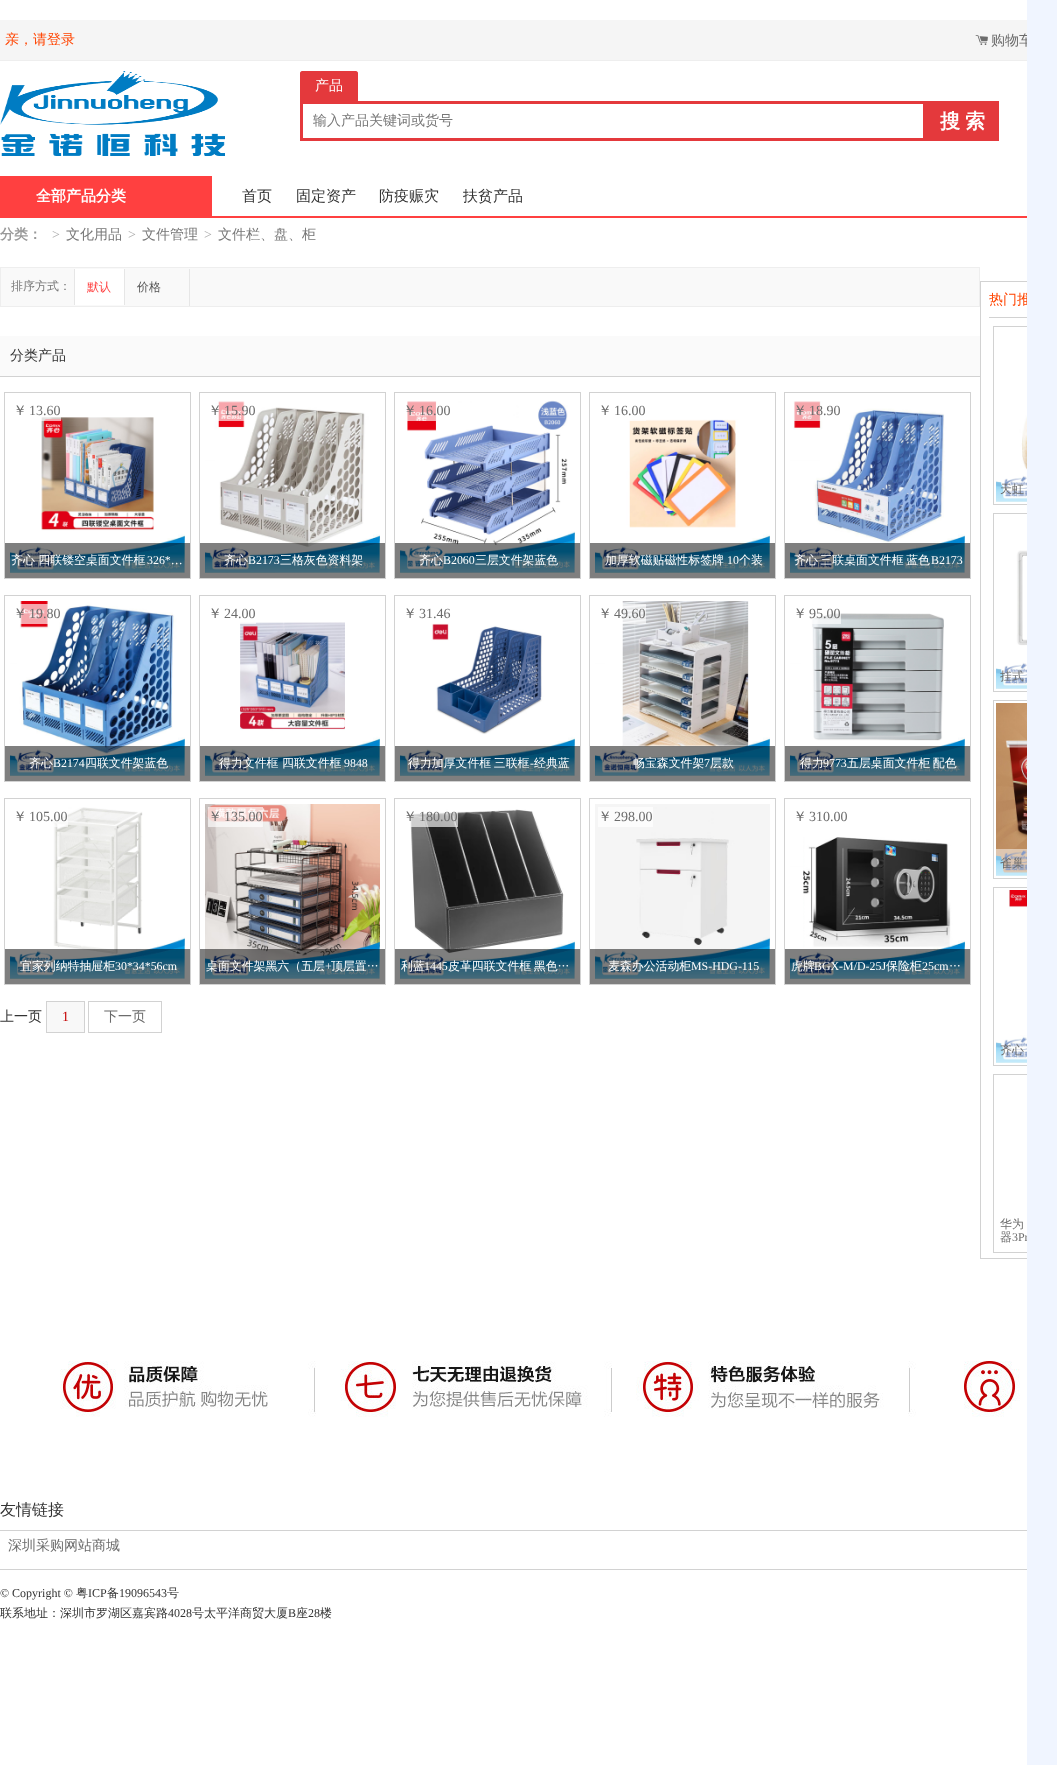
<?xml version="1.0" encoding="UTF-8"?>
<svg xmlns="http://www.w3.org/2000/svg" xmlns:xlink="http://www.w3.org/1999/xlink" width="1057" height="1765">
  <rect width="100%" height="100%" fill="#ffffff" />
  <rect y="20" width="1027" height="40" fill="#f5f5f5" />
  <rect y="60" width="1027" height="1" fill="#eeeeee" />
  <image x="0" y="71" width="225" height="85" xlink:href="image1.png" />
  <path d="M 302 71 h 54 c 1 0 2 1 2 2 v 28 h -58 v -28 c 0 -1 1 -2 2 -2 z" fill="#e4393c" />
  <rect x="301.5" y="102.5" width="623" height="37" fill="none" stroke="#e4393c" stroke-width="3" />
  <rect x="926" y="101" width="73" height="40" fill="#e4393c" />
  <rect y="216" width="1027" height="2" fill="#ff4040" />
  <rect y="176" width="212" height="40" fill="#ff4040" />
  <rect x="0.5" y="267.5" width="979" height="39" fill="#f9f9f9" stroke="#eeeeee" />
  <rect x="189" y="269" width="1" height="37" fill="#e6e6e6" />
  <rect x="75" y="269" width="49" height="36" fill="#ffffff" />
  <rect x="74" y="269" width="1" height="36" fill="#e6e6e6" />
  <rect x="124" y="269" width="1" height="36" fill="#e6e6e6" />
  <rect y="336" width="980" height="40" fill="#fafafa" />
  <rect y="376" width="980" height="1" fill="#d2d2d2" />
  <rect x="4.5" y="392.5" width="186" height="186" fill="none" stroke="#d2d2d2" />
  <image x="10" y="417" width="175" height="156" xlink:href="image2.png" />
  <rect x="41" y="417" width="20" height="4" fill="#ffffff" fill-opacity="0.65" />
  <rect x="5" y="543" width="185" height="35" fill="#000000" fill-opacity="0.5" />
  <rect x="199.5" y="392.5" width="186" height="186" fill="none" stroke="#d2d2d2" />
  <image x="205" y="400" width="175" height="173" xlink:href="image3.png" />
  <rect x="214" y="401" width="42" height="20" fill="#ffffff" fill-opacity="0.65" />
  <rect x="200" y="543" width="185" height="35" fill="#000000" fill-opacity="0.5" />
  <rect x="394.5" y="392.5" width="186" height="186" fill="none" stroke="#d2d2d2" />
  <image x="400" y="400" width="175" height="173" xlink:href="image4.png" />
  <rect x="407" y="401" width="29" height="20" fill="#ffffff" fill-opacity="0.65" />
  <rect x="395" y="543" width="185" height="35" fill="#000000" fill-opacity="0.5" />
  <rect x="589.5" y="392.5" width="186" height="186" fill="none" stroke="#d2d2d2" />
  <image x="595" y="419" width="175" height="154" xlink:href="image5.png" />
  <rect x="629" y="420" width="17" height="1" fill="#ffffff" fill-opacity="0.65" />
  <rect x="590" y="543" width="185" height="35" fill="#000000" fill-opacity="0.5" />
  <rect x="784.5" y="392.5" width="186" height="186" fill="none" stroke="#d2d2d2" />
  <image x="790" y="401" width="175" height="172" xlink:href="image6.png" />
  <rect x="794" y="401" width="28" height="20" fill="#ffffff" fill-opacity="0.65" />
  <rect x="785" y="543" width="185" height="35" fill="#000000" fill-opacity="0.5" />
  <rect x="4.5" y="595.5" width="186" height="186" fill="none" stroke="#d2d2d2" />
  <image x="10" y="601" width="175" height="175" xlink:href="image7.png" />
  <rect x="20" y="604" width="29" height="20" fill="#ffffff" fill-opacity="0.65" />
  <rect x="5" y="746" width="185" height="35" fill="#000000" fill-opacity="0.5" />
  <rect x="199.5" y="595.5" width="186" height="186" fill="none" stroke="#d2d2d2" />
  <image x="205" y="622" width="175" height="154" xlink:href="image8.png" />
  <rect x="240" y="622" width="16" height="2" fill="#ffffff" fill-opacity="0.65" />
  <rect x="200" y="746" width="185" height="35" fill="#000000" fill-opacity="0.5" />
  <rect x="394.5" y="595.5" width="186" height="186" fill="none" stroke="#d2d2d2" />
  <image x="400" y="623" width="175" height="153" xlink:href="image9.png" />
  <rect x="432" y="623" width="16" height="1" fill="#ffffff" fill-opacity="0.65" />
  <rect x="395" y="746" width="185" height="35" fill="#000000" fill-opacity="0.5" />
  <rect x="589.5" y="595.5" width="186" height="186" fill="none" stroke="#d2d2d2" />
  <image x="595" y="601" width="175" height="175" xlink:href="image10.png" />
  <rect x="622" y="604" width="24" height="20" fill="#ffffff" fill-opacity="0.65" />
  <rect x="590" y="746" width="185" height="35" fill="#000000" fill-opacity="0.5" />
  <rect x="784.5" y="595.5" width="186" height="186" fill="none" stroke="#d2d2d2" />
  <image x="790" y="613" width="175" height="163" xlink:href="image11.png" />
  <rect x="812" y="613" width="29" height="11" fill="#ffffff" fill-opacity="0.65" />
  <rect x="785" y="746" width="185" height="35" fill="#000000" fill-opacity="0.5" />
  <rect x="4.5" y="798.5" width="186" height="186" fill="none" stroke="#d2d2d2" />
  <image x="10" y="807" width="175" height="172" xlink:href="image12.png" />
  <rect x="53" y="814" width="15" height="13" fill="#ffffff" fill-opacity="0.65" />
  <rect x="5" y="949" width="185" height="35" fill="#000000" fill-opacity="0.5" />
  <rect x="199.5" y="798.5" width="186" height="186" fill="none" stroke="#d2d2d2" />
  <image x="205" y="804" width="175" height="175" xlink:href="image13.png" />
  <rect x="208" y="807" width="55" height="20" fill="#ffffff" fill-opacity="0.65" />
  <rect x="200" y="949" width="185" height="35" fill="#000000" fill-opacity="0.5" />
  <rect x="394.5" y="798.5" width="186" height="186" fill="none" stroke="#d2d2d2" />
  <image x="400" y="809" width="175" height="170" xlink:href="image14.png" />
  <rect x="410" y="812" width="48" height="15" fill="#ffffff" fill-opacity="0.65" />
  <rect x="395" y="949" width="185" height="35" fill="#000000" fill-opacity="0.5" />
  <rect x="589.5" y="798.5" width="186" height="186" fill="none" stroke="#d2d2d2" />
  <image x="595" y="804" width="175" height="175" xlink:href="image15.png" />
  <rect x="598" y="807" width="55" height="20" fill="#fcfcfc" />
  <rect x="590" y="949" width="185" height="35" fill="#000000" fill-opacity="0.5" />
  <rect x="784.5" y="798.5" width="186" height="186" fill="none" stroke="#d2d2d2" />
  <image x="790" y="837" width="175" height="142" xlink:href="image16.png" />
  <rect x="785" y="949" width="185" height="35" fill="#000000" fill-opacity="0.5" />
  <rect x="46.5" y="1001.5" width="38" height="31" fill="#f8f8f8" stroke="#d2d2d2" />
  <rect x="88.5" y="1001.5" width="73" height="31" fill="none" stroke="#d2d2d2" />
  <rect x="980.5" y="281.5" width="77" height="977" fill="none" stroke="#d2d2d2" />
  <rect x="989" y="317" width="38" height="1" fill="#d2d2d2" />
  <rect x="993.5" y="326.5" width="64" height="178" fill="none" stroke="#d2d2d2" />
  <image x="996" y="401" width="31" height="101" xlink:href="image17.png" />
  <rect x="996" y="475" width="31" height="27" fill="#ffffff" fill-opacity="0.5" />
  <rect x="993.5" y="513.5" width="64" height="178" fill="none" stroke="#d2d2d2" />
  <image x="996" y="550" width="31" height="139" xlink:href="image18.png" />
  <rect x="996" y="662" width="31" height="27" fill="#ffffff" fill-opacity="0.5" />
  <rect x="993.5" y="700.5" width="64" height="178" fill="none" stroke="#d2d2d2" />
  <image x="996" y="703" width="31" height="173" xlink:href="image19.png" />
  <rect x="996" y="849" width="31" height="27" fill="#ffffff" fill-opacity="0.5" />
  <rect x="993.5" y="887.5" width="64" height="178" fill="none" stroke="#d2d2d2" />
  <image x="996" y="890" width="31" height="173" xlink:href="image20.png" />
  <rect x="996" y="1036" width="31" height="27" fill="#ffffff" fill-opacity="0.5" />
  <rect x="993.5" y="1074.5" width="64" height="178" fill="none" stroke="#d2d2d2" />
  <image x="60" y="1361" width="967" height="56" xlink:href="image21.png" />
  <rect y="1530" width="1027" height="1" fill="#d2d2d2" />
  <rect y="1569" width="1027" height="1" fill="#d2d2d2" />
  <text x="5" y="44" style="font-family: WenQuanYi Zen Hei; font-size: 14px; font-weight: 500; fill: #ff4400">亲，请登录</text>
  <text x="975" y="45" style="font-family: '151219'; font-size: 14px; fill: #6c6c6c">$</text>
  <text x="991" y="45" style="font-family: WenQuanYi Zen Hei; font-size: 14px; font-weight: 500; fill: #6c6c6c">购物车</text>
  <text x="315" y="90" style="font-family: WenQuanYi Zen Hei; font-size: 14px; font-weight: 500; fill: #ffffff">产品</text>
  <text x="313" y="125" style="font-family: WenQuanYi Zen Hei; font-size: 14px; font-weight: 500; fill: #777777">输入产品关键词或货号</text>
  <text x="940" y="128" style="font-family: WenQuanYi Zen Hei; font-size: 20px; font-weight: bold; letter-spacing: 5px; fill: #ffffff">搜索</text>
  <text x="36" y="201" style="font-family: WenQuanYi Zen Hei; font-size: 15px; font-weight: bold; fill: #ffffff">全部产品分类</text>
  <text x="242" y="201" style="font-family: WenQuanYi Zen Hei; font-size: 15px; font-weight: 500; fill: #333333">首页</text>
  <text x="296" y="201" style="font-family: WenQuanYi Zen Hei; font-size: 15px; font-weight: 500; fill: #333333">固定资产</text>
  <text x="379" y="201" style="font-family: WenQuanYi Zen Hei; font-size: 15px; font-weight: 500; fill: #333333">防疫赈灾</text>
  <text x="463" y="201" style="font-family: WenQuanYi Zen Hei; font-size: 15px; font-weight: 500; fill: #333333">扶贫产品</text>
  <text x="0" y="239" style="font-family: WenQuanYi Zen Hei; font-size: 14px; font-weight: bold; fill: #999999">分类：</text>
  <text x="52" y="239" style="font-family: Liberation Serif; font-size: 14px; fill: #aaaaaa">&gt;</text>
  <text x="66" y="239" style="font-family: WenQuanYi Zen Hei; font-size: 14px; font-weight: 500; fill: #777777">文化用品</text>
  <text x="128" y="239" style="font-family: Liberation Serif; font-size: 14px; fill: #aaaaaa">&gt;</text>
  <text x="142" y="239" style="font-family: WenQuanYi Zen Hei; font-size: 14px; font-weight: 500; fill: #777777">文件管理</text>
  <text x="204" y="239" style="font-family: Liberation Serif; font-size: 14px; fill: #aaaaaa">&gt;</text>
  <text x="218" y="239" style="font-family: WenQuanYi Zen Hei; font-size: 14px; font-weight: 500; fill: #777777">文件栏、盘、柜</text>
  <text x="11" y="290" style="font-family: WenQuanYi Zen Hei; font-size: 12px; font-weight: 500; fill: #777777">排序方式：</text>
  <text x="87" y="291" style="font-family: WenQuanYi Zen Hei; font-size: 12px; font-weight: 500; fill: #ff4040">默认</text>
  <text x="137" y="291" style="font-family: WenQuanYi Zen Hei; font-size: 12px; font-weight: 500; fill: #555555">价格</text>
  <text x="10" y="360" style="font-family: WenQuanYi Zen Hei; font-size: 14px; font-weight: 500; fill: #333333">分类产品</text>
  <text x="13" y="415" style="font-family: WenQuanYi Zen Hei; font-size: 14px; font-weight: 500; fill: #6c6c6c">￥</text>
  <text x="29" y="415" style="font-family: Liberation Serif; font-size: 14px; fill: #6c6c6c">13.60</text>
  <text x="11" y="564" style="font-family: WenQuanYi Zen Hei; font-size: 11.9px; font-weight: 500; fill: #ffffff">齐心 四联镂空桌面文件框</text>
  <text x="147" y="564" style="font-family: Liberation Serif; font-size: 11.9px; fill: #ffffff">326*…</text>
  <text x="208" y="415" style="font-family: WenQuanYi Zen Hei; font-size: 14px; font-weight: 500; fill: #6c6c6c">￥</text>
  <text x="224" y="415" style="font-family: Liberation Serif; font-size: 14px; fill: #6c6c6c">15.90</text>
  <text x="224" y="564" style="font-family: WenQuanYi Zen Hei; font-size: 11.9px; font-weight: 500; fill: #ffffff">齐心</text>
  <text x="248" y="564" style="font-family: Liberation Serif; font-size: 11.9px; fill: #ffffff">B2173</text>
  <text x="280" y="564" style="font-family: WenQuanYi Zen Hei; font-size: 11.9px; font-weight: 500; fill: #ffffff">三格灰色资料架</text>
  <text x="403" y="415" style="font-family: WenQuanYi Zen Hei; font-size: 14px; font-weight: 500; fill: #6c6c6c">￥</text>
  <text x="419" y="415" style="font-family: Liberation Serif; font-size: 14px; fill: #6c6c6c">16.00</text>
  <text x="419" y="564" style="font-family: WenQuanYi Zen Hei; font-size: 11.9px; font-weight: 500; fill: #ffffff">齐心</text>
  <text x="443" y="564" style="font-family: Liberation Serif; font-size: 11.9px; fill: #ffffff">B2060</text>
  <text x="475" y="564" style="font-family: WenQuanYi Zen Hei; font-size: 11.9px; font-weight: 500; fill: #ffffff">三层文件架蓝色</text>
  <text x="598" y="415" style="font-family: WenQuanYi Zen Hei; font-size: 14px; font-weight: 500; fill: #6c6c6c">￥</text>
  <text x="614" y="415" style="font-family: Liberation Serif; font-size: 14px; fill: #6c6c6c">16.00</text>
  <text x="605" y="564" style="font-family: WenQuanYi Zen Hei; font-size: 11.9px; font-weight: 500; fill: #ffffff">加厚软磁贴磁性标签牌</text>
  <text x="727" y="564" style="font-family: Liberation Serif; font-size: 11.9px; fill: #ffffff">10</text>
  <text x="739" y="564" style="font-family: WenQuanYi Zen Hei; font-size: 11.9px; font-weight: 500; fill: #ffffff">个装</text>
  <text x="793" y="415" style="font-family: WenQuanYi Zen Hei; font-size: 14px; font-weight: 500; fill: #6c6c6c">￥</text>
  <text x="809" y="415" style="font-family: Liberation Serif; font-size: 14px; fill: #6c6c6c">18.90</text>
  <text x="794" y="564" word-spacing="-1" style="font-family: WenQuanYi Zen Hei; font-size: 11.9px; font-weight: 500; fill: #ffffff">齐心 三联桌面文件框 蓝色</text>
  <text x="931" y="564" style="font-family: Liberation Serif; font-size: 11.9px; fill: #ffffff">B2173</text>
  <text x="13" y="618" style="font-family: WenQuanYi Zen Hei; font-size: 14px; font-weight: 500; fill: #6c6c6c">￥</text>
  <text x="29" y="618" style="font-family: Liberation Serif; font-size: 14px; fill: #6c6c6c">19.80</text>
  <text x="29" y="767" style="font-family: WenQuanYi Zen Hei; font-size: 11.9px; font-weight: 500; fill: #ffffff">齐心</text>
  <text x="53" y="767" style="font-family: Liberation Serif; font-size: 11.9px; fill: #ffffff">B2174</text>
  <text x="85" y="767" style="font-family: WenQuanYi Zen Hei; font-size: 11.9px; font-weight: 500; fill: #ffffff">四联文件架蓝色</text>
  <text x="208" y="618" style="font-family: WenQuanYi Zen Hei; font-size: 14px; font-weight: 500; fill: #6c6c6c">￥</text>
  <text x="224" y="618" style="font-family: Liberation Serif; font-size: 14px; fill: #6c6c6c">24.00</text>
  <text x="219" y="767" style="font-family: WenQuanYi Zen Hei; font-size: 11.9px; font-weight: 500; fill: #ffffff">得力文件框 四联文件框</text>
  <text x="344" y="767" style="font-family: Liberation Serif; font-size: 11.9px; fill: #ffffff">9848</text>
  <text x="403" y="618" style="font-family: WenQuanYi Zen Hei; font-size: 14px; font-weight: 500; fill: #6c6c6c">￥</text>
  <text x="419" y="618" style="font-family: Liberation Serif; font-size: 14px; fill: #6c6c6c">31.46</text>
  <text x="408" y="767" word-spacing="-1" style="font-family: WenQuanYi Zen Hei; font-size: 11.9px; font-weight: 500; fill: #ffffff">得力加厚文件框 三联框</text>
  <text x="530" y="767" style="font-family: Liberation Serif; font-size: 11.9px; fill: #ffffff">-</text>
  <text x="534" y="767" style="font-family: WenQuanYi Zen Hei; font-size: 11.9px; font-weight: 500; fill: #ffffff">经典蓝</text>
  <text x="598" y="618" style="font-family: WenQuanYi Zen Hei; font-size: 14px; font-weight: 500; fill: #6c6c6c">￥</text>
  <text x="614" y="618" style="font-family: Liberation Serif; font-size: 14px; fill: #6c6c6c">49.60</text>
  <text x="633" y="767" style="font-family: WenQuanYi Zen Hei; font-size: 11.9px; font-weight: 500; fill: #ffffff">畅宝森文件架</text>
  <text x="704" y="767" style="font-family: Liberation Serif; font-size: 11.9px; fill: #ffffff">7</text>
  <text x="710" y="767" style="font-family: WenQuanYi Zen Hei; font-size: 11.9px; font-weight: 500; fill: #ffffff">层款</text>
  <text x="793" y="618" style="font-family: WenQuanYi Zen Hei; font-size: 14px; font-weight: 500; fill: #6c6c6c">￥</text>
  <text x="809" y="618" style="font-family: Liberation Serif; font-size: 14px; fill: #6c6c6c">95.00</text>
  <text x="800" y="767" style="font-family: WenQuanYi Zen Hei; font-size: 11.9px; font-weight: 500; fill: #ffffff">得力</text>
  <text x="823" y="767" style="font-family: Liberation Serif; font-size: 11.9px; fill: #ffffff">9773</text>
  <text x="847" y="767" word-spacing="-1" style="font-family: WenQuanYi Zen Hei; font-size: 11.9px; font-weight: 500; fill: #ffffff">五层桌面文件柜 配色</text>
  <text x="13" y="821" style="font-family: WenQuanYi Zen Hei; font-size: 14px; font-weight: 500; fill: #6c6c6c">￥</text>
  <text x="29" y="821" style="font-family: Liberation Serif; font-size: 14px; fill: #6c6c6c">105.00</text>
  <text x="20" y="970" style="font-family: WenQuanYi Zen Hei; font-size: 11.9px; font-weight: 500; fill: #ffffff">宜家列纳特抽屉柜</text>
  <text x="115" y="970" style="font-family: Liberation Serif; font-size: 11.9px; fill: #ffffff">30*34*56cm</text>
  <text x="208" y="821" style="font-family: WenQuanYi Zen Hei; font-size: 14px; font-weight: 500; fill: #6c6c6c">￥</text>
  <text x="224" y="821" style="font-family: Liberation Serif; font-size: 14px; fill: #6c6c6c">135.00</text>
  <text x="206" y="970" style="font-family: WenQuanYi Zen Hei; font-size: 11.9px; font-weight: 500; fill: #ffffff">桌面文件架黑六（五层</text>
  <text x="325" y="970" style="font-family: Liberation Serif; font-size: 11.9px; fill: #ffffff">+</text>
  <text x="331" y="970" style="font-family: WenQuanYi Zen Hei; font-size: 11.9px; font-weight: 500; fill: #ffffff">顶层置…</text>
  <text x="403" y="821" style="font-family: WenQuanYi Zen Hei; font-size: 14px; font-weight: 500; fill: #6c6c6c">￥</text>
  <text x="419" y="821" style="font-family: Liberation Serif; font-size: 14px; fill: #6c6c6c">180.00</text>
  <text x="401" y="970" style="font-family: WenQuanYi Zen Hei; font-size: 11.9px; font-weight: 500; fill: #ffffff">利蓝</text>
  <text x="424" y="970" style="font-family: Liberation Serif; font-size: 11.9px; fill: #ffffff">1445</text>
  <text x="448" y="970" word-spacing="-1" style="font-family: WenQuanYi Zen Hei; font-size: 11.9px; font-weight: 500; fill: #ffffff">皮革四联文件框 黑色…</text>
  <text x="598" y="821" style="font-family: WenQuanYi Zen Hei; font-size: 14px; font-weight: 500; fill: #6c6c6c">￥</text>
  <text x="614" y="821" style="font-family: Liberation Serif; font-size: 14px; fill: #6c6c6c">298.00</text>
  <text x="608" y="970" style="font-family: WenQuanYi Zen Hei; font-size: 11.9px; font-weight: 500; fill: #ffffff">麦森办公活动柜</text>
  <text x="691" y="970" style="font-family: Liberation Serif; font-size: 11.9px; fill: #ffffff">MS-HDG-115</text>
  <text x="793" y="821" style="font-family: WenQuanYi Zen Hei; font-size: 14px; font-weight: 500; fill: #6c6c6c">￥</text>
  <text x="809" y="821" style="font-family: Liberation Serif; font-size: 14px; fill: #6c6c6c">310.00</text>
  <text x="791" y="970" style="font-family: WenQuanYi Zen Hei; font-size: 11.9px; font-weight: 500; fill: #ffffff">虎牌</text>
  <text x="814" y="970" style="font-family: Liberation Serif; font-size: 11.9px; fill: #ffffff">BGX-M/D-25J</text>
  <text x="886" y="970" style="font-family: WenQuanYi Zen Hei; font-size: 11.9px; font-weight: 500; fill: #ffffff">保险柜</text>
  <text x="922" y="970" style="font-family: Liberation Serif; font-size: 11.9px; fill: #ffffff">25cm</text>
  <text x="949" y="970" style="font-family: WenQuanYi Zen Hei; font-size: 11.9px; font-weight: 500; fill: #ffffff">…</text>
  <text x="0" y="1021" style="font-family: WenQuanYi Zen Hei; font-size: 14px; font-weight: 500; fill: #333333">上一页</text>
  <text x="62" y="1021" style="font-family: Liberation Serif; font-size: 14px; fill: #c40000">1</text>
  <text x="104" y="1021" style="font-family: WenQuanYi Zen Hei; font-size: 14px; font-weight: 500; fill: #6c6c6c">下一页</text>
  <text x="989" y="304" style="font-family: WenQuanYi Zen Hei; font-size: 14px; font-weight: 500; fill: #ff4400">热门推</text>
  <text x="1000" y="493" style="font-family: WenQuanYi Zen Hei; font-size: 11.9px; font-weight: 500; fill: #6c6c6c">天虹</text>
  <text x="1000" y="680" style="font-family: WenQuanYi Zen Hei; font-size: 11.9px; font-weight: 500; fill: #6c6c6c">挂式</text>
  <text x="1000" y="867" style="font-family: WenQuanYi Zen Hei; font-size: 11.9px; font-weight: 500; fill: #6c6c6c">雀巢</text>
  <text x="1000" y="1054" style="font-family: WenQuanYi Zen Hei; font-size: 11.9px; font-weight: 500; fill: #6c6c6c">齐心</text>
  <text x="1000" y="1228" style="font-family: WenQuanYi Zen Hei; font-size: 11.9px; font-weight: 500; fill: #6c6c6c">华为</text>
  <text x="1000" y="1241" style="font-family: WenQuanYi Zen Hei; font-size: 11.9px; font-weight: 500; fill: #6c6c6c">器</text>
  <text x="1012" y="1241" style="font-family: Liberation Serif; font-size: 11.9px; fill: #6c6c6c">3Pr</text>
  <rect x="1027" width="30" height="1765" fill="#f0f5ff" />
  <text x="0" y="1515" style="font-family: WenQuanYi Zen Hei; font-size: 16px; font-weight: 500; fill: #333333">友情链接</text>
  <text x="8" y="1550" style="font-family: WenQuanYi Zen Hei; font-size: 14px; font-weight: 500; fill: #6c6c6c">深圳采购网站商城</text>
  <text x="0" y="1597" style="font-family: Liberation Serif; font-size: 12px; fill: #333333">© Copyright ©</text>
  <text x="76" y="1597" style="font-family: WenQuanYi Zen Hei; font-size: 12px; font-weight: 500; fill: #333333">粤</text>
  <text x="88" y="1597" style="font-family: Liberation Serif; font-size: 12px; fill: #333333">ICP</text>
  <text x="107" y="1597" style="font-family: WenQuanYi Zen Hei; font-size: 12px; font-weight: 500; fill: #333333">备</text>
  <text x="119" y="1597" style="font-family: Liberation Serif; font-size: 12px; fill: #333333">19096543</text>
  <text x="167" y="1597" style="font-family: WenQuanYi Zen Hei; font-size: 12px; font-weight: 500; fill: #333333">号</text>
  <text x="0" y="1617" style="font-family: WenQuanYi Zen Hei; font-size: 12px; font-weight: 500; fill: #333333">联系地址：深圳市罗湖区嘉宾路</text>
  <text x="168" y="1617" style="font-family: Liberation Serif; font-size: 12px; fill: #333333">4028</text>
  <text x="192" y="1617" style="font-family: WenQuanYi Zen Hei; font-size: 12px; font-weight: 500; fill: #333333">号太平洋商贸大厦</text>
  <text x="288" y="1617" style="font-family: Liberation Serif; font-size: 12px; fill: #333333">B</text>
  <text x="296" y="1617" style="font-family: WenQuanYi Zen Hei; font-size: 12px; font-weight: 500; fill: #333333">座</text>
  <text x="308" y="1617" style="font-family: Liberation Serif; font-size: 12px; fill: #333333">28</text>
  <text x="320" y="1617" style="font-family: WenQuanYi Zen Hei; font-size: 12px; font-weight: 500; fill: #333333">楼</text>
</svg>
